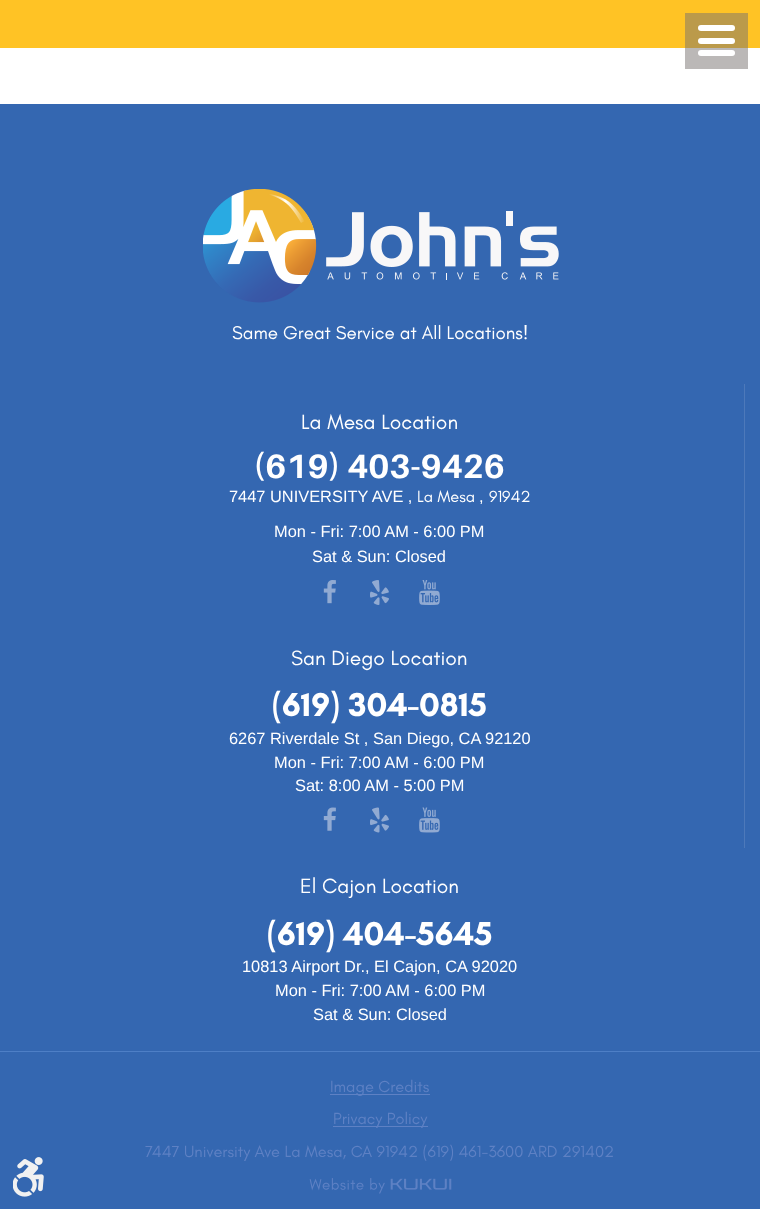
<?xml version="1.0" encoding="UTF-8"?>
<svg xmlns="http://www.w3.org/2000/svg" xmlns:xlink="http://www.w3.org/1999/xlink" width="760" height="1209">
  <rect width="100%" height="100%" fill="#ffffff" />
  <rect x="685" y="48" width="63" height="21" fill="#bbb8b7" />
  <rect width="760" height="48" fill="#ffc325" />
  <rect x="685" y="13" width="63" height="35" fill="#bb9a4a" />
  <rect x="698" y="38" width="37" height="6" rx="3" fill="#ffffff" />
  <rect x="698" y="25" width="37" height="6" rx="3" fill="#ffffff" />
  <rect x="698" y="50" width="37" height="6" rx="3" fill="#ffffff" />
  <rect y="104" width="760" height="1105" fill="#3467b1" />
  <image x="203" y="189" width="356" height="114" xlink:href="image1.png" />
  <rect x="744" y="384" width="1" height="464" fill="#4d79ba" />
  <image x="323" y="580" width="13" height="24" xlink:href="image2.png" />
  <image x="370" y="580" width="19" height="25" xlink:href="image3.png" />
  <image x="419" y="580" width="21" height="25" xlink:href="image4.png" />
  <image x="323" y="807" width="13" height="24" xlink:href="image5.png" />
  <image x="370" y="807" width="19" height="26" xlink:href="image6.png" />
  <image x="419" y="807" width="21" height="26" xlink:href="image7.png" />
  <rect y="1051" width="760" height="1" fill="#4e7fc6" />
  <rect x="330" y="1094" width="100" height="1" fill="#5e81c4" />
  <rect x="333" y="1126" width="95" height="1" fill="#5e81c4" />
  <image x="309" y="1178" width="143" height="16" xlink:href="image8.png" />
  <image x="13" y="1157" width="31" height="40" xlink:href="image9.png" />
  <text x="232" y="339" style="font-family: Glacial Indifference; font-size: 18.75px; fill: #ffffff">Same Great Service at All Locations!</text>
  <text x="301" y="429" style="font-family: Glacial Indifference; font-size: 21px; fill: #ffffff">La Mesa Location</text>
  <text x="253" y="478" style="font-family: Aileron; font-size: 33.75px; font-weight: bold; fill: #ffffff">(619) 403-9426</text>
  <text x="229" y="502" style="font-family: Liberation Sans; font-size: 16.4px; fill: #ffffff">7447 UNIVERSITY AVE ,</text>
  <text x="417" y="502" style="font-family: Glacial Indifference; font-size: 16.4px; fill: #ffffff">La Mesa</text>
  <text x="489" y="502" style="font-family: Glacial Indifference; font-size: 16.4px; fill: #ffffff">91942</text>
  <text x="479" y="502" style="font-family: Liberation Sans; font-size: 16.4px; fill: #ffffff">,</text>
  <text x="274" y="537" style="font-family: Liberation Sans; font-size: 16.4px; fill: #ffffff">Mon - Fri: 7:00 AM - 6:00 PM</text>
  <text x="312" y="562" style="font-family: Liberation Sans; font-size: 16.4px; fill: #ffffff">Sat &amp; Sun: Closed</text>
  <text x="291" y="665" style="font-family: Glacial Indifference; font-size: 21px; fill: #ffffff">San Diego Location</text>
  <text x="272" y="716" style="font-family: Glacial Indifference; font-size: 33.75px; font-weight: bold; fill: #ffffff">(619) 304-0815</text>
  <text x="229" y="744" style="font-family: Liberation Sans; font-size: 16.4px; fill: #ffffff">6267 Riverdale St , San Diego, CA 92120</text>
  <text x="274" y="768" style="font-family: Liberation Sans; font-size: 16.4px; fill: #ffffff">Mon - Fri: 7:00 AM - 6:00 PM</text>
  <text x="295" y="791" style="font-family: Liberation Sans; font-size: 16.4px; fill: #ffffff">Sat: 8:00 AM - 5:00 PM</text>
  <text x="300" y="893" style="font-family: Glacial Indifference; font-size: 21px; fill: #ffffff">El Cajon Location</text>
  <text x="267" y="945" style="font-family: Glacial Indifference; font-size: 33.75px; font-weight: bold; fill: #ffffff">(619) 404-5645</text>
  <text x="242" y="972" style="font-family: Liberation Sans; font-size: 16.4px; fill: #ffffff">10813 Airport Dr., El Cajon, CA 92020</text>
  <text x="275" y="996" style="font-family: Liberation Sans; font-size: 16.4px; fill: #ffffff">Mon - Fri: 7:00 AM - 6:00 PM</text>
  <text x="313" y="1020" style="font-family: Liberation Sans; font-size: 16.4px; fill: #ffffff">Sat &amp; Sun: Closed</text>
  <text x="330" y="1092" style="font-family: Glacial Indifference; font-size: 16.4px; fill: #5e81c4">Image Credits</text>
  <text x="333" y="1124" style="font-family: Glacial Indifference; font-size: 16.4px; fill: #5e81c4">Privacy Policy</text>
  <text x="145" y="1157" style="font-family: Glacial Indifference; font-size: 16.4px; fill: #5e81c4">7447 University Ave La Mesa, CA 91942 (619) 461-3600 ARD 291402</text>
</svg>
